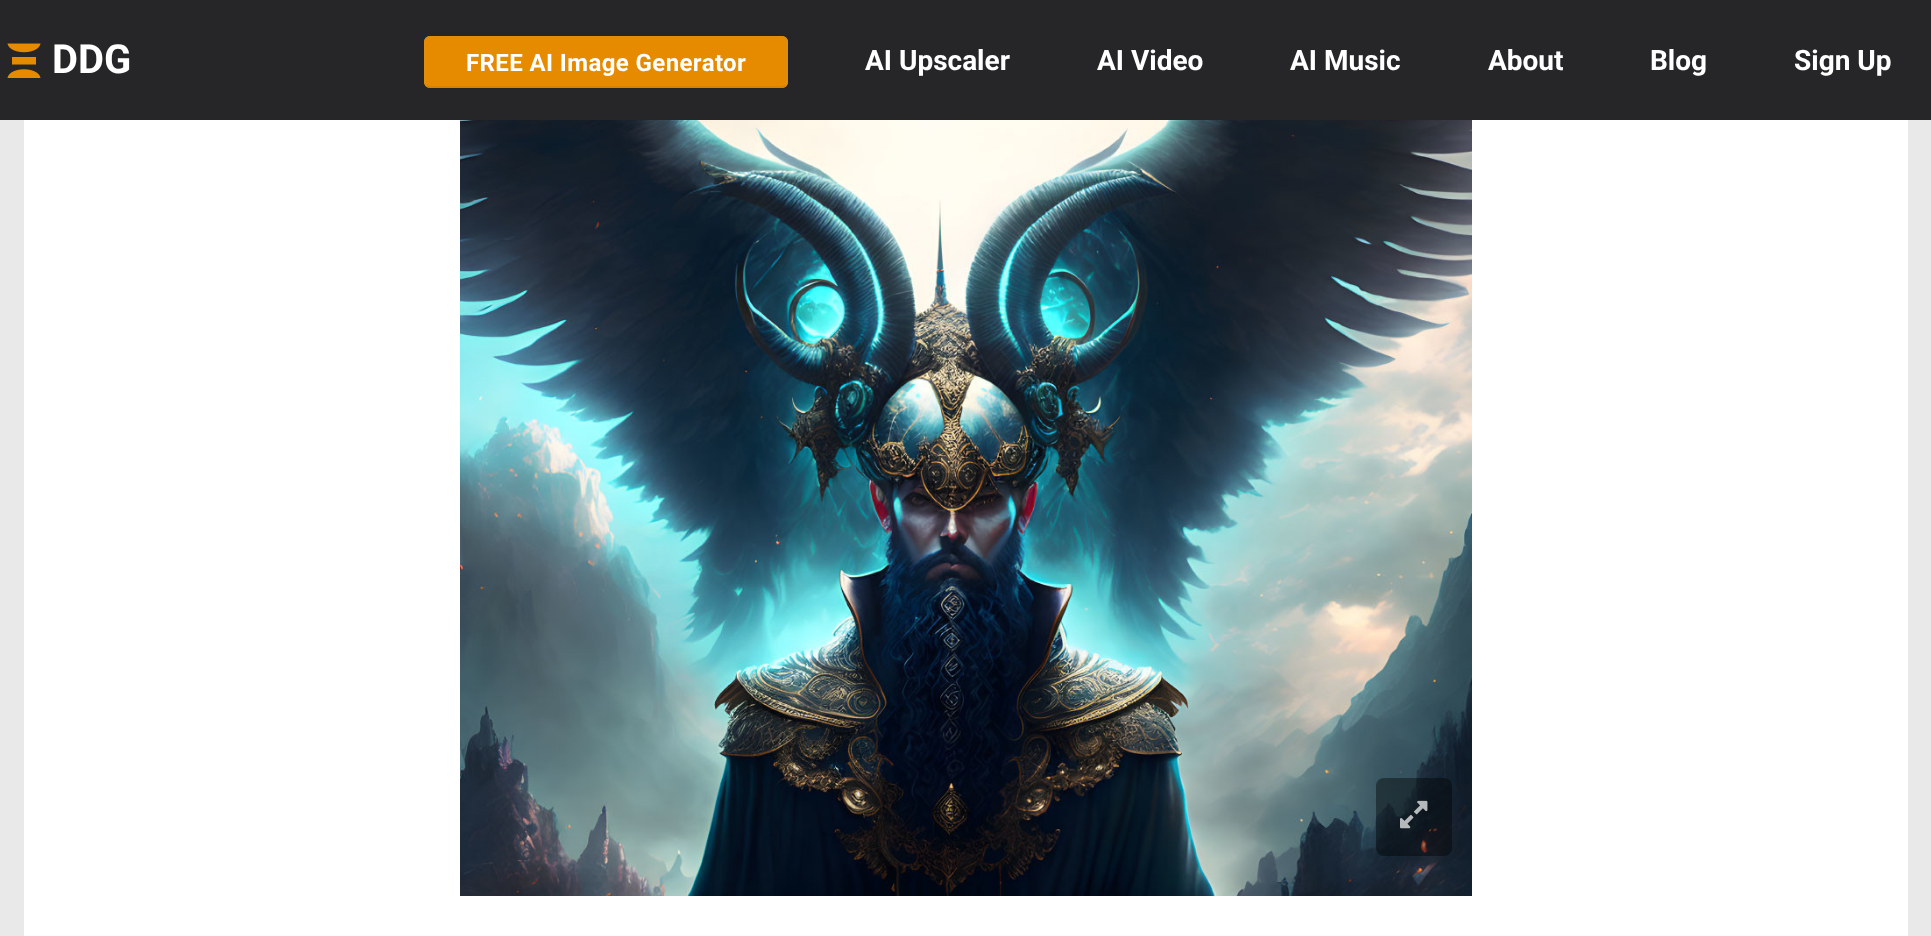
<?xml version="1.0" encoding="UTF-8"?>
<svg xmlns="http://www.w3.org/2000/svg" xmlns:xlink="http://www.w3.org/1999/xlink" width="1931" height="936">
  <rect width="100%" height="100%" fill="#e9e9e9" />
  <rect width="1931" height="120" fill="#262628" />
  <image x="7" y="43" width="34" height="35" xlink:href="image1.png" />
  <rect x="424" y="36" width="364" height="52" rx="6" fill="#e68a00" />
  <path d="M 785.5 85.5 c -1 1 -2 1.5 -3.5 1.5 h -352 c -1.5 0 -2.5 -0.5 -3.5 -1.5" fill="none" stroke="#d68400" stroke-width="2" />
  <path d="M 426.5 85.5 c -1 -1 -1.5 -2 -1.5 -3.5 v -40 c 0 -1.5 0.5 -2.5 1.5 -3.5 c 1 -1 2 -1.5 3.5 -1.5 h 352 c 1.5 0 2.5 0.5 3.5 1.5 c 1 1 1.5 2 1.5 3.5 v 40 c 0 1.5 -0.5 2.5 -1.5 3.5" fill="none" stroke="#dd8e11" stroke-width="2" />
  <rect x="24" y="120" width="1884" height="816" fill="#ffffff" />
  <image x="460" y="120" width="1012" height="776" xlink:href="image2.png" />
  <rect x="1376" y="778" width="76" height="78" rx="8" fill="#000000" fill-opacity="0.4" />
  <image x="1400" y="800" width="28" height="29" xlink:href="image3.png" />
  <text x="52" y="73" style="font-family: Roboto; font-size: 40px; font-weight: bold; fill: #ffffff">DDG</text>
  <text x="466" y="71" style="font-family: Roboto; font-size: 24px; font-weight: bold; letter-spacing: 0.4px; fill: #ffffff">FREE AI Image Generator</text>
  <text x="865" y="70" style="font-family: Roboto; font-size: 28px; font-weight: bold; fill: #ffffff">AI Upscaler</text>
  <text x="1097" y="70" style="font-family: Roboto; font-size: 28px; font-weight: bold; fill: #ffffff">AI Video</text>
  <text x="1290" y="70" style="font-family: Roboto; font-size: 28px; font-weight: bold; fill: #ffffff">AI Music</text>
  <text x="1488" y="70" style="font-family: Roboto; font-size: 28px; font-weight: bold; fill: #ffffff">About</text>
  <text x="1650" y="70" style="font-family: Roboto; font-size: 28px; font-weight: bold; fill: #ffffff">Blog</text>
  <text x="1794" y="70" style="font-family: Roboto; font-size: 28px; font-weight: bold; fill: #ffffff">Sign Up</text>
</svg>
